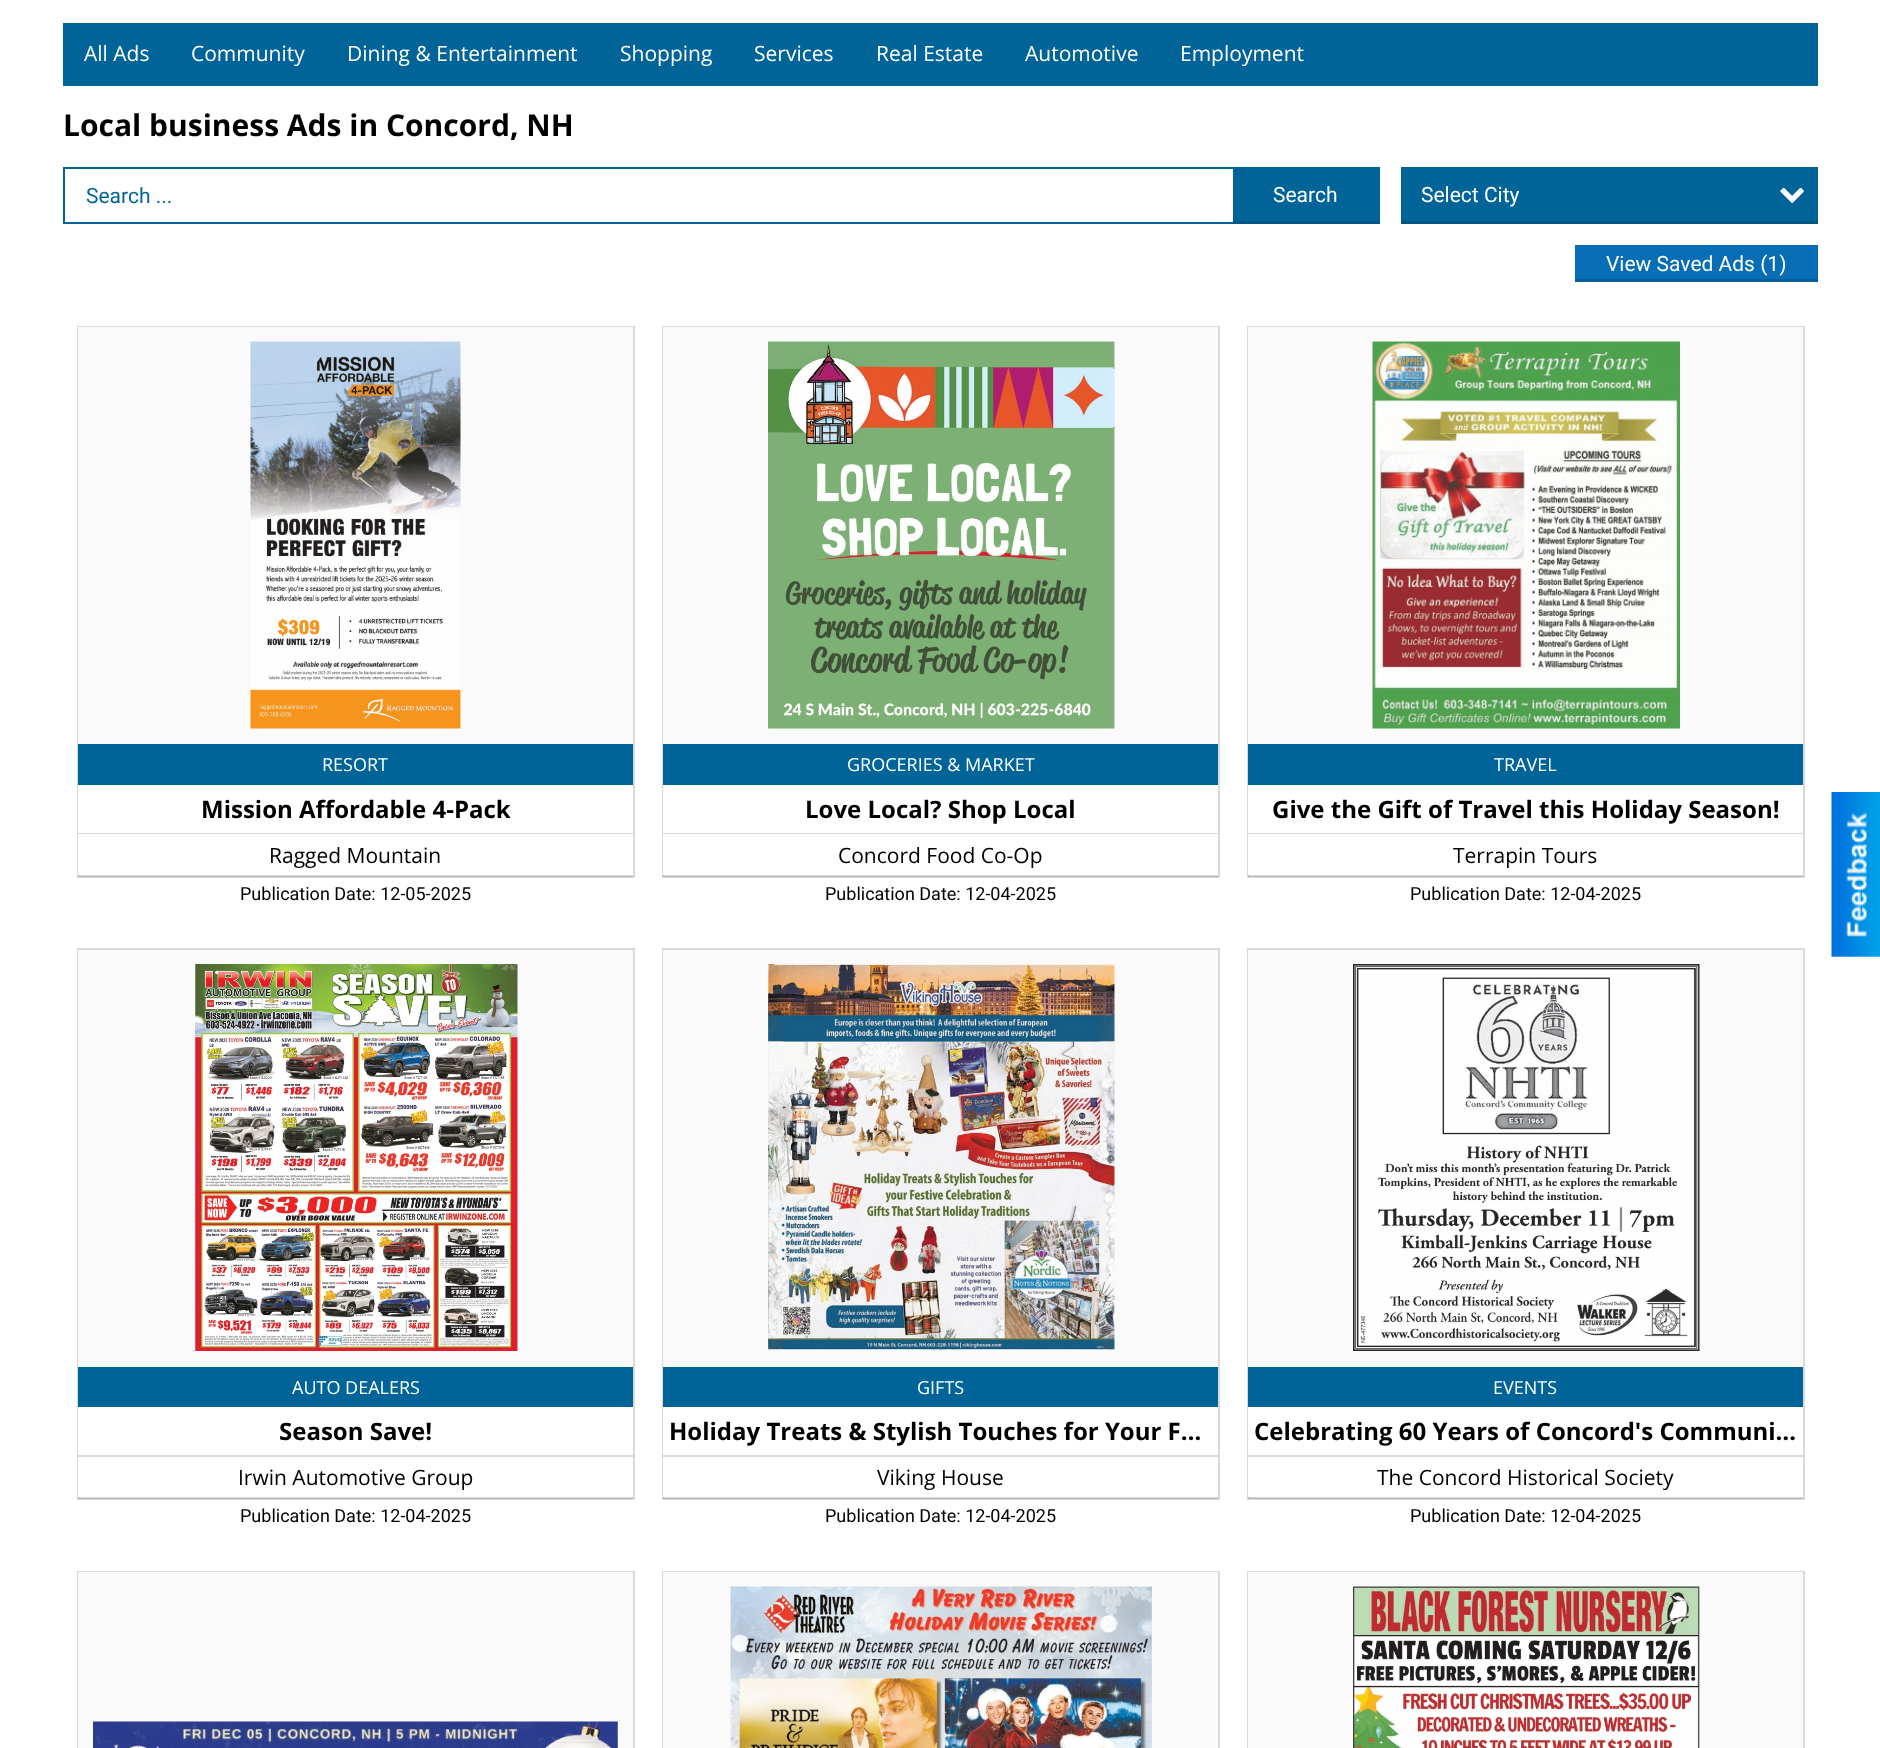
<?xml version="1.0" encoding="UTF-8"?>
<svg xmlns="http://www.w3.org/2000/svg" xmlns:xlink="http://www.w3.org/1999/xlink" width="1880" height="1748">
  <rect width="100%" height="100%" fill="#ffffff" />
  <rect x="63" y="23" width="1755" height="63" fill="#006498" />
  <rect x="64" y="168" width="1315" height="55" fill="none" stroke="#006498" stroke-width="2" />
  <rect x="1233" y="169" width="145" height="52" fill="#006498" />
  <rect x="1233" y="221" width="147" height="3" fill="#005581" />
  <rect x="1401" y="167" width="417" height="54" fill="#006498" />
  <rect x="1401" y="221" width="417" height="3" fill="#005581" />
  <image x="1780" y="187" width="24" height="16" xlink:href="image1.png" />
  <rect x="1575" y="245" width="243" height="34" fill="#076db5" />
  <rect x="1575" y="279" width="243" height="3" fill="#065d9a" />
  <rect x="78" y="327" width="556" height="550" fill="none" stroke="#d9d9d9" stroke-width="2" />
  <rect x="78" y="875" width="555" height="2" fill="#000000" fill-opacity="0.15" />
  <rect x="78" y="327" width="555" height="417" fill="#fafafa" />
  <image x="250" y="341" width="211" height="388" xlink:href="image2.png" />
  <rect x="78" y="785" width="1" height="48" fill="#ffffff" />
  <rect x="78" y="744" width="555" height="41" fill="#006498" />
  <rect x="78" y="833" width="555" height="1" fill="#d9d9d9" />
  <rect x="78" y="834" width="1" height="41" fill="#ffffff" />
  <rect x="663" y="327" width="556" height="550" fill="none" stroke="#d9d9d9" stroke-width="2" />
  <rect x="663" y="875" width="555" height="2" fill="#000000" fill-opacity="0.15" />
  <rect x="663" y="327" width="555" height="417" fill="#fafafa" />
  <image x="768" y="341" width="347" height="388" xlink:href="image3.png" />
  <rect x="663" y="785" width="1" height="48" fill="#ffffff" />
  <rect x="663" y="744" width="555" height="41" fill="#006498" />
  <rect x="663" y="833" width="555" height="1" fill="#d9d9d9" />
  <rect x="663" y="834" width="1" height="41" fill="#ffffff" />
  <rect x="1248" y="327" width="556" height="550" fill="none" stroke="#d9d9d9" stroke-width="2" />
  <rect x="1248" y="875" width="555" height="2" fill="#000000" fill-opacity="0.15" />
  <rect x="1248" y="327" width="555" height="417" fill="#fafafa" />
  <image x="1372" y="341" width="308" height="388" xlink:href="image4.png" />
  <rect x="1248" y="785" width="1" height="48" fill="#ffffff" />
  <rect x="1248" y="744" width="555" height="41" fill="#006498" />
  <rect x="1248" y="833" width="555" height="1" fill="#d9d9d9" />
  <rect x="1248" y="834" width="1" height="41" fill="#ffffff" />
  <rect x="78" y="949" width="556" height="550" fill="none" stroke="#d9d9d9" stroke-width="2" />
  <rect x="78" y="1497" width="555" height="2" fill="#000000" fill-opacity="0.15" />
  <rect x="78" y="950" width="555" height="417" fill="#fafafa" />
  <image x="195" y="964" width="323" height="387" xlink:href="image5.png" />
  <rect x="78" y="1407" width="1" height="90" fill="#ffffff" />
  <rect x="78" y="1367" width="555" height="40" fill="#006498" />
  <rect x="78" y="1455" width="555" height="2" fill="#d9d9d9" />
  <rect x="663" y="949" width="556" height="550" fill="none" stroke="#d9d9d9" stroke-width="2" />
  <rect x="663" y="1497" width="555" height="2" fill="#000000" fill-opacity="0.15" />
  <rect x="663" y="950" width="555" height="417" fill="#fafafa" />
  <image x="768" y="964" width="347" height="387" xlink:href="image6.png" />
  <rect x="663" y="1407" width="1" height="90" fill="#ffffff" />
  <rect x="663" y="1367" width="555" height="40" fill="#006498" />
  <rect x="663" y="1455" width="555" height="2" fill="#d9d9d9" />
  <rect x="1248" y="949" width="556" height="550" fill="none" stroke="#d9d9d9" stroke-width="2" />
  <rect x="1248" y="1497" width="555" height="2" fill="#000000" fill-opacity="0.15" />
  <rect x="1248" y="950" width="555" height="417" fill="#fafafa" />
  <image x="1353" y="964" width="347" height="387" xlink:href="image7.png" />
  <rect x="1248" y="1407" width="1" height="90" fill="#ffffff" />
  <rect x="1248" y="1367" width="555" height="40" fill="#006498" />
  <rect x="1248" y="1455" width="555" height="2" fill="#d9d9d9" />
  <rect x="78" y="1572" width="556" height="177" fill="none" stroke="#d9d9d9" stroke-width="2" />
  <rect x="78" y="1572" width="555" height="176" fill="#fafafa" />
  <image x="93" y="1721" width="525" height="27" xlink:href="image8.png" />
  <rect x="663" y="1572" width="556" height="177" fill="none" stroke="#d9d9d9" stroke-width="2" />
  <rect x="663" y="1572" width="555" height="176" fill="#fafafa" />
  <image x="730" y="1586" width="422" height="162" xlink:href="image9.png" />
  <rect x="1248" y="1572" width="556" height="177" fill="none" stroke="#d9d9d9" stroke-width="2" />
  <rect x="1248" y="1572" width="555" height="176" fill="#fafafa" />
  <image x="1353" y="1586" width="347" height="162" xlink:href="image10.png" />
  <image x="1831" y="792" width="49" height="165" xlink:href="image11.png" />
  <text x="84" y="61" style="font-family: Open Sans; font-size: 21px; fill: #ffffff">All Ads</text>
  <text x="191" y="61" style="font-family: Open Sans; font-size: 21px; fill: #ffffff">Community</text>
  <text x="347" y="61" style="font-family: Open Sans; font-size: 21px; fill: #ffffff">Dining &amp; Entertainment</text>
  <text x="620" y="61" style="font-family: Open Sans; font-size: 21px; fill: #ffffff">Shopping</text>
  <text x="754" y="61" style="font-family: Open Sans; font-size: 21px; fill: #ffffff">Services</text>
  <text x="876" y="61" style="font-family: Open Sans; font-size: 21px; fill: #ffffff">Real Estate</text>
  <text x="1025" y="61" style="font-family: Open Sans; font-size: 21px; fill: #ffffff">Automotive</text>
  <text x="1180" y="61" style="font-family: Open Sans; font-size: 21px; fill: #ffffff">Employment</text>
  <text x="63" y="136" style="font-family: Open Sans; font-size: 30px; font-weight: bold; fill: #000000">Local business Ads in Concord, NH</text>
  <text x="86" y="203" style="font-family: Roboto; font-size: 21px; fill: #006498">Search ...</text>
  <text x="1273" y="202" style="font-family: Roboto; font-size: 21px; fill: #ffffff">Search</text>
  <text x="1421" y="202" style="font-family: Roboto; font-size: 21px; fill: #ffffff">Select City</text>
  <text x="1606" y="271" style="font-family: Roboto; font-size: 21px; fill: #ffffff">View Saved Ads (1)</text>
  <text x="322" y="771" style="font-family: Open Sans; font-size: 18px; fill: #ffffff">RESORT</text>
  <text x="201" y="818" style="font-family: Open Sans; font-size: 24px; font-weight: bold; fill: #000000">Mission Affordable 4-Pack</text>
  <text x="269" y="863" style="font-family: Open Sans; font-size: 21px; fill: #000000">Ragged Mountain</text>
  <text x="240" y="900" style="font-family: Roboto; font-size: 18px; fill: #000000">Publication Date: 12-05-2025</text>
  <text x="847" y="771" style="font-family: Open Sans; font-size: 18px; fill: #ffffff">GROCERIES &amp; MARKET</text>
  <text x="805" y="818" style="font-family: Open Sans; font-size: 24px; font-weight: bold; fill: #000000">Love Local? Shop Local</text>
  <text x="838" y="863" style="font-family: Open Sans; font-size: 21px; fill: #000000">Concord Food Co-Op</text>
  <text x="825" y="900" style="font-family: Roboto; font-size: 18px; fill: #000000">Publication Date: 12-04-2025</text>
  <text x="1494" y="771" style="font-family: Open Sans; font-size: 18px; fill: #ffffff">TRAVEL</text>
  <text x="1272" y="818" style="font-family: Open Sans; font-size: 24px; font-weight: bold; fill: #000000">Give the Gift of Travel this Holiday Season!</text>
  <text x="1453" y="863" style="font-family: Open Sans; font-size: 21px; fill: #000000">Terrapin Tours</text>
  <text x="1410" y="900" style="font-family: Roboto; font-size: 18px; fill: #000000">Publication Date: 12-04-2025</text>
  <text x="292" y="1394" style="font-family: Open Sans; font-size: 18px; fill: #ffffff">AUTO DEALERS</text>
  <text x="279" y="1440" style="font-family: Open Sans; font-size: 24px; font-weight: bold; fill: #000000">Season Save!</text>
  <text x="238" y="1485" style="font-family: Open Sans; font-size: 21px; fill: #000000">Irwin Automotive Group</text>
  <text x="240" y="1522" style="font-family: Roboto; font-size: 18px; fill: #000000">Publication Date: 12-04-2025</text>
  <text x="917" y="1394" style="font-family: Open Sans; font-size: 18px; fill: #ffffff">GIFTS</text>
  <text x="669" y="1440" style="font-family: Open Sans; font-size: 24px; font-weight: bold; fill: #000000">Holiday Treats &amp; Stylish Touches for Your F…</text>
  <text x="877" y="1485" style="font-family: Open Sans; font-size: 21px; fill: #000000">Viking House</text>
  <text x="825" y="1522" style="font-family: Roboto; font-size: 18px; fill: #000000">Publication Date: 12-04-2025</text>
  <text x="1493" y="1394" style="font-family: Open Sans; font-size: 18px; fill: #ffffff">EVENTS</text>
  <text x="1254" y="1440" style="font-family: Open Sans; font-size: 24px; font-weight: bold; fill: #000000">Celebrating 60 Years of Concord's Communi…</text>
  <text x="1377" y="1485" style="font-family: Open Sans; font-size: 21px; fill: #000000">The Concord Historical Society</text>
  <text x="1410" y="1522" style="font-family: Roboto; font-size: 18px; fill: #000000">Publication Date: 12-04-2025</text>
</svg>
